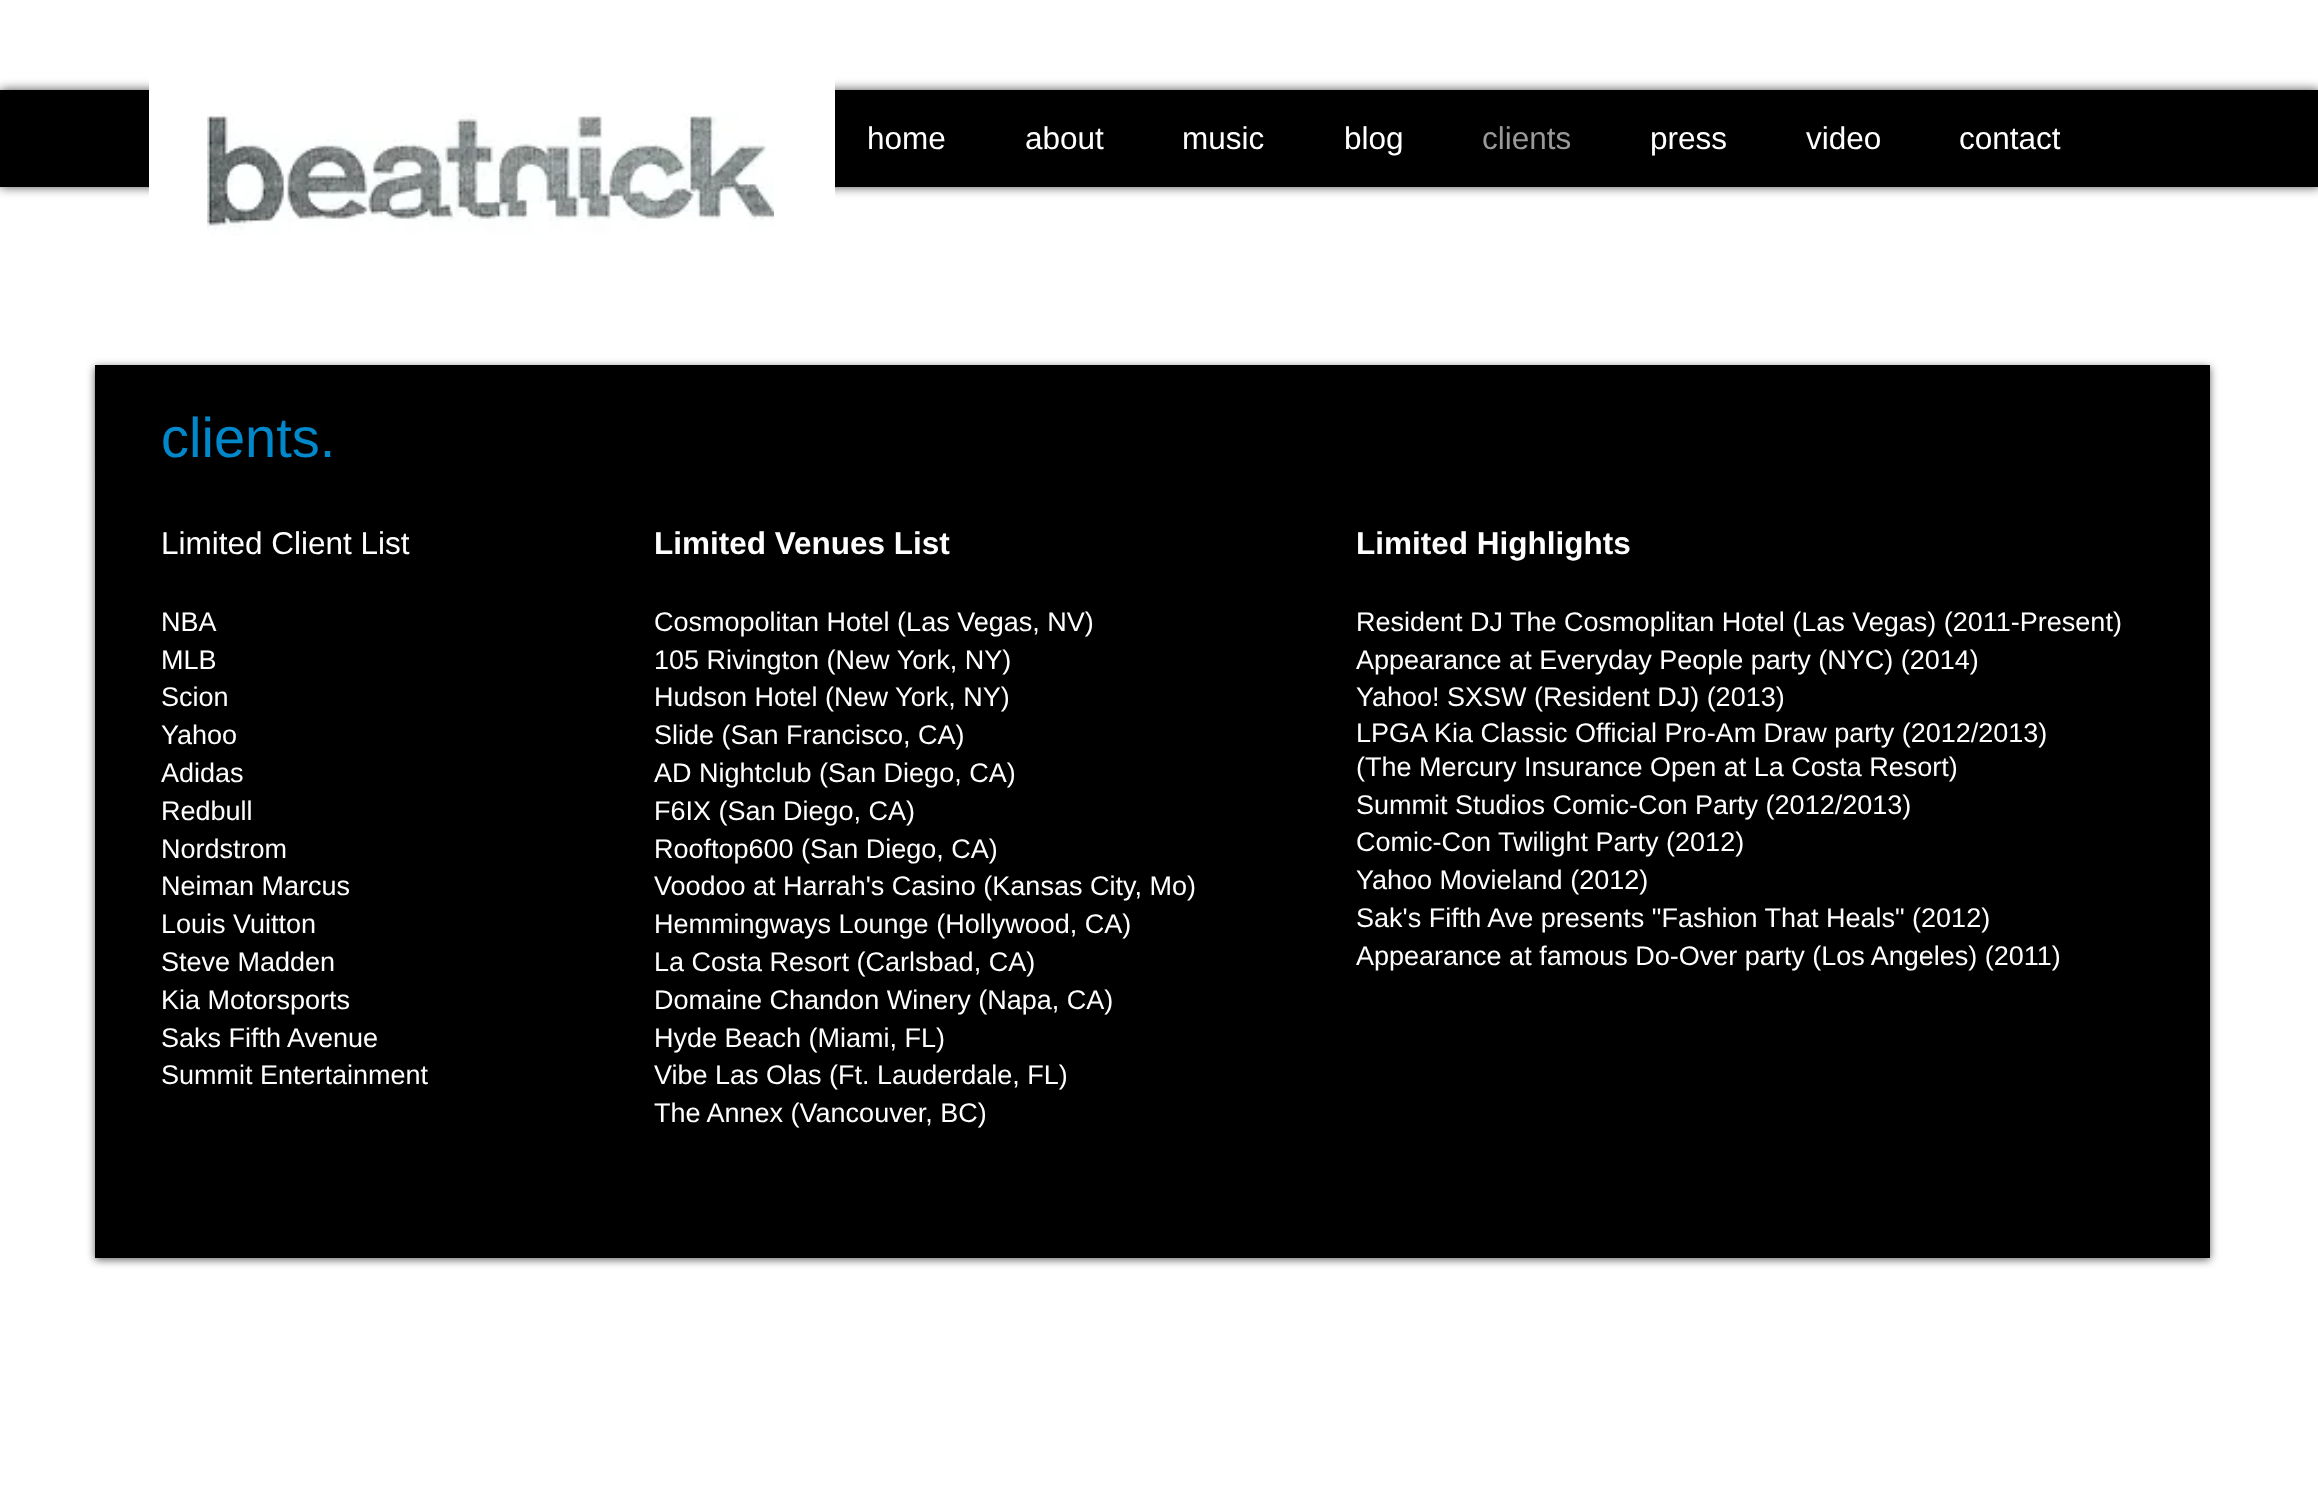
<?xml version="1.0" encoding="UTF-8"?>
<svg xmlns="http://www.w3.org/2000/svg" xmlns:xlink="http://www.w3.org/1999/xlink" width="2318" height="1495">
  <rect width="100%" height="100%" fill="#ffffff" />
  <rect y="90" width="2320" height="97" fill="#000000" fill-opacity="0.7" filter="blur(5.5px)" />
  <rect y="90" width="2318" height="97" fill="#000000" />
  <rect x="149" y="78" width="686" height="121" fill="#ffffff" />
  <image x="207" y="113" width="567" height="123" xlink:href="image1.png" />
  <rect x="95" y="367" width="2115" height="893" fill="#000000" fill-opacity="0.6" filter="blur(4.5px)" />
  <rect x="95" y="365" width="2115" height="893" fill="#000000" />
  <image x="94" y="369" width="1" height="105" xlink:href="image2.png" />
  <text x="867" y="149" style="font-family: Liberation Sans; font-size: 31.5px; fill: #ffffff">home</text>
  <text x="1025" y="149" style="font-family: Liberation Sans; font-size: 31.5px; fill: #ffffff">about</text>
  <text x="1182" y="149" style="font-family: Liberation Sans; font-size: 31.5px; fill: #ffffff">music</text>
  <text x="1344" y="149" style="font-family: Liberation Sans; font-size: 31.5px; fill: #ffffff">blog</text>
  <text x="1482" y="149" style="font-family: Liberation Sans; font-size: 31.5px; fill: #999999">clients</text>
  <text x="1650" y="149" style="font-family: Liberation Sans; font-size: 31.5px; fill: #ffffff">press</text>
  <text x="1806" y="149" style="font-family: Liberation Sans; font-size: 31.5px; fill: #ffffff">video</text>
  <text x="1959" y="149" style="font-family: Liberation Sans; font-size: 31.5px; fill: #ffffff">contact</text>
  <text x="161" y="457" style="font-family: Liberation Sans; font-size: 56px; fill: #0088cb">clients.</text>
  <text x="161" y="554" style="font-family: Liberation Sans; font-size: 31.5px; fill: #ffffff">Limited Client List</text>
  <text x="161" y="631" style="font-family: Liberation Sans; font-size: 27px; fill: #ffffff">NBA</text>
  <text x="161" y="669" style="font-family: Liberation Sans; font-size: 27px; fill: #ffffff">MLB</text>
  <text x="161" y="706" style="font-family: Liberation Sans; font-size: 27px; fill: #ffffff">Scion</text>
  <text x="161" y="744" style="font-family: Liberation Sans; font-size: 27px; fill: #ffffff">Yahoo</text>
  <text x="161" y="782" style="font-family: Liberation Sans; font-size: 27px; fill: #ffffff">Adidas</text>
  <text x="161" y="820" style="font-family: Liberation Sans; font-size: 27px; fill: #ffffff">Redbull</text>
  <text x="161" y="858" style="font-family: Liberation Sans; font-size: 27px; fill: #ffffff">Nordstrom</text>
  <text x="161" y="895" style="font-family: Liberation Sans; font-size: 27px; fill: #ffffff">Neiman Marcus</text>
  <text x="161" y="933" style="font-family: Liberation Sans; font-size: 27px; fill: #ffffff">Louis Vuitton</text>
  <text x="161" y="971" style="font-family: Liberation Sans; font-size: 27px; fill: #ffffff">Steve Madden</text>
  <text x="161" y="1009" style="font-family: Liberation Sans; font-size: 27px; fill: #ffffff">Kia Motorsports</text>
  <text x="161" y="1047" style="font-family: Liberation Sans; font-size: 27px; fill: #ffffff">Saks Fifth Avenue</text>
  <text x="161" y="1084" style="font-family: Liberation Sans; font-size: 27px; fill: #ffffff">Summit Entertainment</text>
  <text x="654" y="554" style="font-family: Liberation Sans; font-size: 31.5px; font-weight: bold; fill: #ffffff">Limited Venues List</text>
  <text x="654" y="631" style="font-family: Liberation Sans; font-size: 27px; fill: #ffffff">Cosmopolitan Hotel (Las Vegas, NV)</text>
  <text x="654" y="669" style="font-family: Liberation Sans; font-size: 27px; fill: #ffffff">105 Rivington (New York, NY)</text>
  <text x="654" y="706" style="font-family: Liberation Sans; font-size: 27px; fill: #ffffff">Hudson Hotel (New York, NY)</text>
  <text x="654" y="744" style="font-family: Liberation Sans; font-size: 27px; fill: #ffffff">Slide (San Francisco, CA)</text>
  <text x="654" y="782" style="font-family: Liberation Sans; font-size: 27px; fill: #ffffff">AD Nightclub (San Diego, CA)</text>
  <text x="654" y="820" style="font-family: Liberation Sans; font-size: 27px; fill: #ffffff">F6IX (San Diego, CA)</text>
  <text x="654" y="858" style="font-family: Liberation Sans; font-size: 27px; fill: #ffffff">Rooftop600 (San Diego, CA)</text>
  <text x="654" y="895" style="font-family: Liberation Sans; font-size: 27px; fill: #ffffff">Voodoo at Harrah's Casino (Kansas City, Mo)</text>
  <text x="654" y="933" style="font-family: Liberation Sans; font-size: 27px; fill: #ffffff">Hemmingways Lounge (Hollywood, CA)</text>
  <text x="654" y="971" style="font-family: Liberation Sans; font-size: 27px; fill: #ffffff">La Costa Resort (Carlsbad, CA)</text>
  <text x="654" y="1009" style="font-family: Liberation Sans; font-size: 27px; fill: #ffffff">Domaine Chandon Winery (Napa, CA)</text>
  <text x="654" y="1047" style="font-family: Liberation Sans; font-size: 27px; fill: #ffffff">Hyde Beach (Miami, FL)</text>
  <text x="654" y="1084" style="font-family: Liberation Sans; font-size: 27px; fill: #ffffff">Vibe Las Olas (Ft. Lauderdale, FL)</text>
  <text x="654" y="1122" style="font-family: Liberation Sans; font-size: 27px; fill: #ffffff">The Annex (Vancouver, BC)</text>
  <text x="1356" y="554" style="font-family: Liberation Sans; font-size: 31.5px; font-weight: bold; fill: #ffffff">Limited Highlights</text>
  <text x="1356" y="631" style="font-family: Liberation Sans; font-size: 27px; fill: #ffffff">Resident DJ The Cosmoplitan Hotel (Las Vegas) (2011-Present)</text>
  <text x="1356" y="669" style="font-family: Liberation Sans; font-size: 27px; fill: #ffffff">Appearance at Everyday People party (NYC) (2014)</text>
  <text x="1356" y="706" style="font-family: Liberation Sans; font-size: 27px; fill: #ffffff">Yahoo! SXSW (Resident DJ) (2013)</text>
  <text x="1356" y="742" style="font-family: Liberation Sans; font-size: 27px; fill: #ffffff">LPGA Kia Classic Official Pro-Am Draw party (2012/2013)</text>
  <text x="1356" y="776" style="font-family: Liberation Sans; font-size: 27px; fill: #ffffff">(The Mercury Insurance Open at La Costa Resort)</text>
  <text x="1356" y="814" style="font-family: Liberation Sans; font-size: 27px; fill: #ffffff">Summit Studios Comic-Con Party (2012/2013)</text>
  <text x="1356" y="851" style="font-family: Liberation Sans; font-size: 27px; fill: #ffffff">Comic-Con Twilight Party (2012)</text>
  <text x="1356" y="889" style="font-family: Liberation Sans; font-size: 27px; fill: #ffffff">Yahoo Movieland (2012)</text>
  <text x="1356" y="927" style="font-family: Liberation Sans; font-size: 27px; fill: #ffffff">Sak's Fifth Ave presents "Fashion That Heals" (2012)</text>
  <text x="1356" y="965" style="font-family: Liberation Sans; font-size: 27px; fill: #ffffff">Appearance at famous Do-Over party (Los Angeles) (2011)</text>
</svg>
